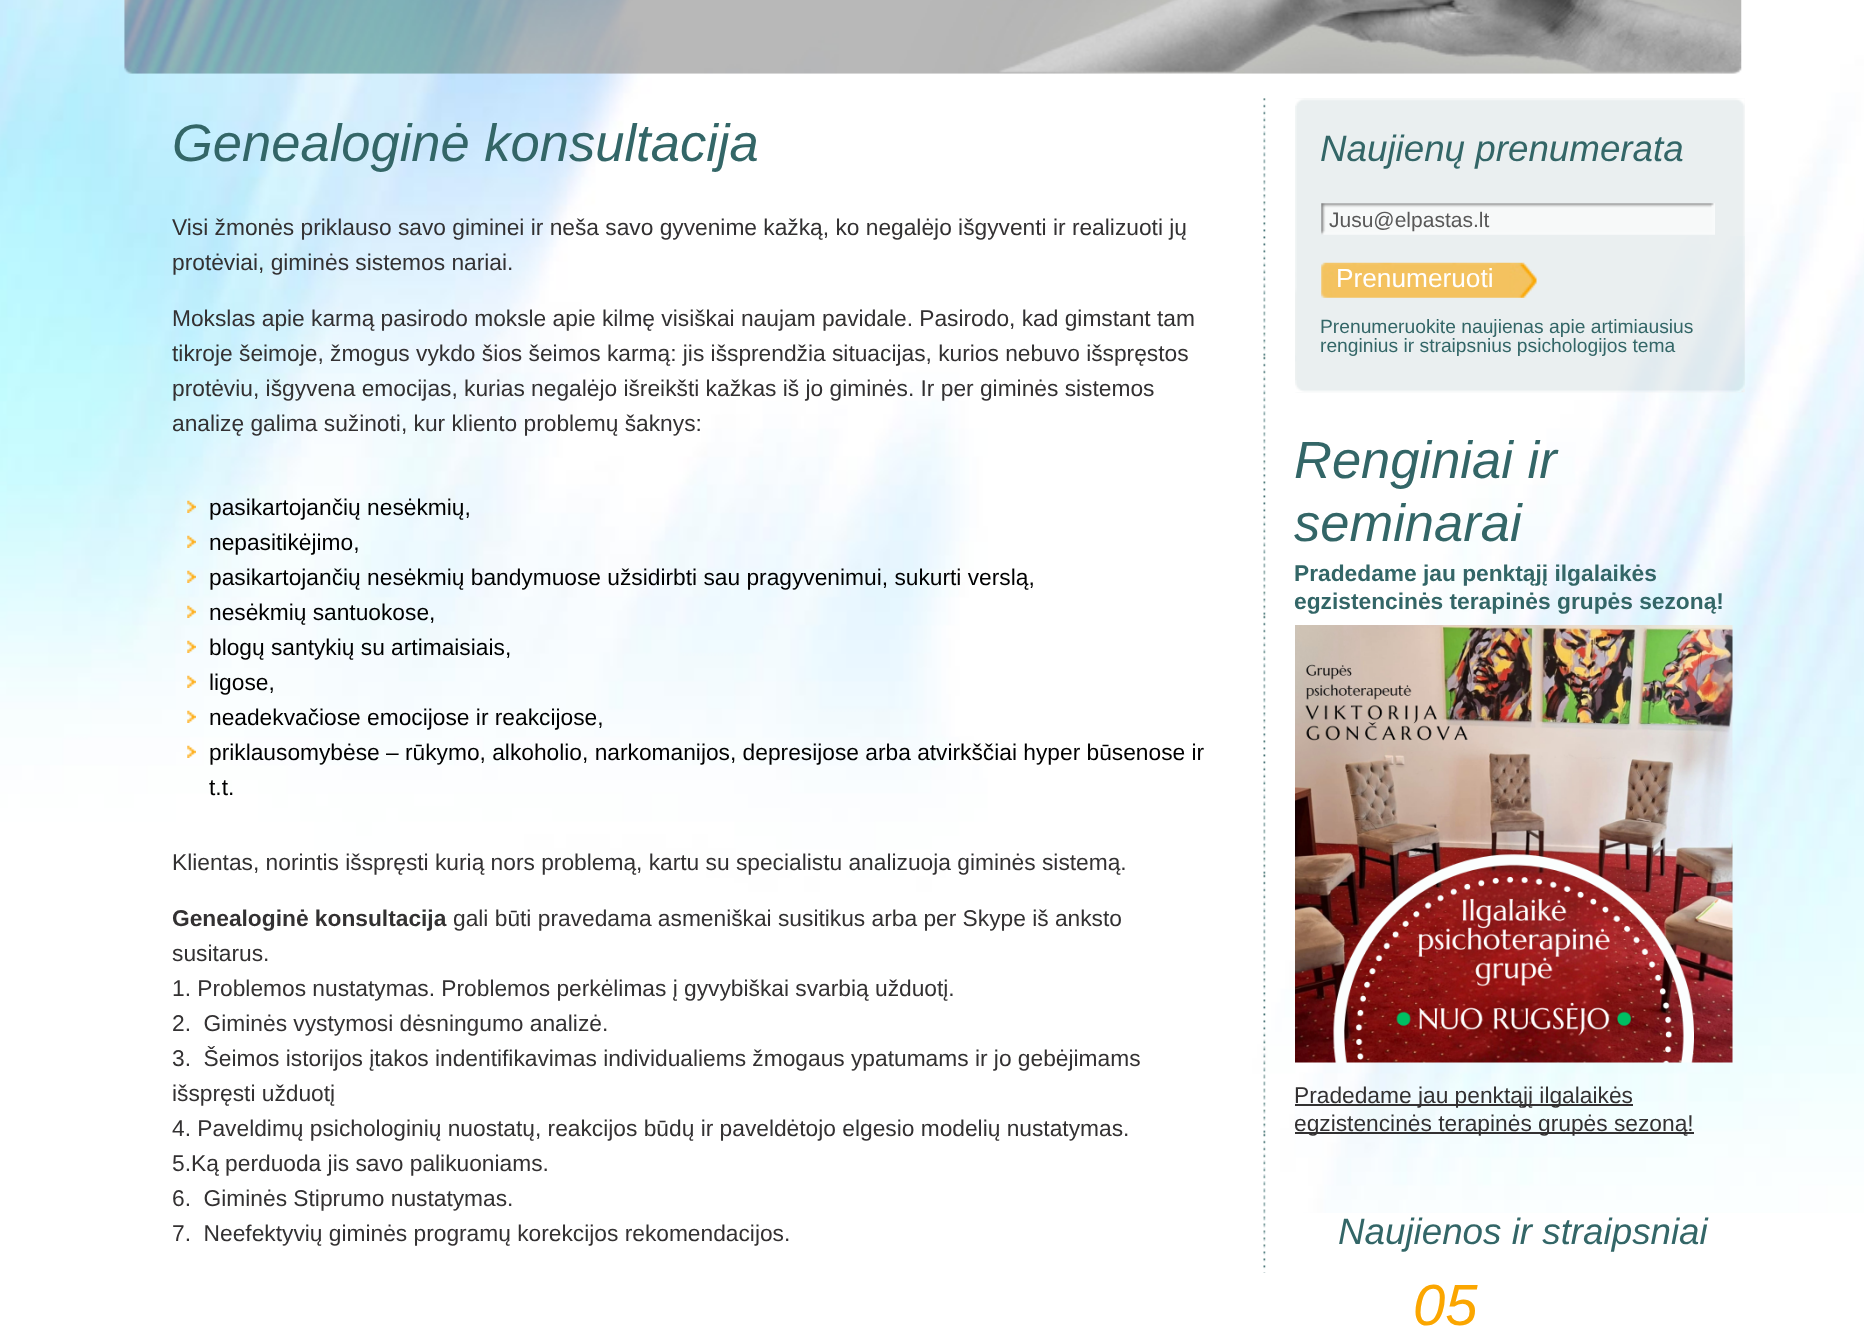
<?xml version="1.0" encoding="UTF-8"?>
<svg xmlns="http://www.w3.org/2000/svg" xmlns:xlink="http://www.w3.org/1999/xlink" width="1864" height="1338">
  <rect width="100%" height="100%" fill="#ffffff" />
  <image x="0" y="0" width="1864" height="1213" xlink:href="image1.png" />
  <image x="124" y="0" width="1618" height="74" xlink:href="image2.png" />
  <image x="1263" y="98" width="3" height="1175" xlink:href="image3.png" />
  <image x="187" y="500" width="9" height="13" xlink:href="image4.png" />
  <image x="187" y="535" width="9" height="13" xlink:href="image5.png" />
  <image x="187" y="570" width="9" height="13" xlink:href="image6.png" />
  <image x="187" y="605" width="9" height="13" xlink:href="image7.png" />
  <image x="187" y="640" width="9" height="13" xlink:href="image8.png" />
  <image x="187" y="675" width="9" height="13" xlink:href="image9.png" />
  <image x="187" y="710" width="9" height="13" xlink:href="image10.png" />
  <image x="187" y="745" width="9" height="13" xlink:href="image11.png" />
  <image x="1295" y="98" width="450" height="295" xlink:href="image12.png" />
  <image x="1295" y="98" width="450" height="8" xlink:href="image13.png" />
  <image x="1295" y="236" width="450" height="156" xlink:href="image14.png" />
  <image x="1321" y="203" width="394" height="32" xlink:href="image15.png" />
  <image x="1321" y="262" width="216" height="36" xlink:href="image16.png" />
  <image x="1295" y="625" width="438" height="438" xlink:href="image17.png" />
  <rect x="1295" y="1104" width="338" height="2" fill="#333132" />
  <rect x="1295" y="1132" width="399" height="2" fill="#333132" />
  <text x="172" y="161" style="font-family: Liberation Sans; font-size: 52.5px; font-style: italic; fill: #336667">Genealoginė konsultacija</text>
  <text x="172" y="235" style="font-family: Liberation Sans; font-size: 22.75px; fill: #333132">Visi žmonės priklauso savo giminei ir neša savo gyvenime kažką, ko negalėjo išgyventi ir realizuoti jų</text>
  <text x="172" y="270" style="font-family: Liberation Sans; font-size: 22.75px; fill: #333132">protėviai, giminės sistemos nariai.</text>
  <text x="172" y="326" style="font-family: Liberation Sans; font-size: 22.75px; fill: #333132">Mokslas apie karmą pasirodo moksle apie kilmę visiškai naujam pavidale. Pasirodo, kad gimstant tam</text>
  <text x="172" y="361" style="font-family: Liberation Sans; font-size: 22.75px; fill: #333132">tikroje šeimoje, žmogus vykdo šios šeimos karmą: jis išsprendžia situacijas, kurios nebuvo išspręstos</text>
  <text x="172" y="396" style="font-family: Liberation Sans; font-size: 22.75px; fill: #333132">protėviu, išgyvena emocijas, kurias negalėjo išreikšti kažkas iš jo giminės. Ir per giminės sistemos</text>
  <text x="172" y="431" style="font-family: Liberation Sans; font-size: 22.75px; fill: #333132">analizę galima sužinoti, kur kliento problemų šaknys:</text>
  <text x="209" y="515" style="font-family: Liberation Sans; font-size: 22.75px; fill: #000000">pasikartojančių nesėkmių,</text>
  <text x="209" y="550" style="font-family: Liberation Sans; font-size: 22.75px; fill: #000000">nepasitikėjimo,</text>
  <text x="209" y="585" style="font-family: Liberation Sans; font-size: 22.75px; fill: #000000">pasikartojančių nesėkmių bandymuose užsidirbti sau pragyvenimui, sukurti verslą,</text>
  <text x="209" y="620" style="font-family: Liberation Sans; font-size: 22.75px; fill: #000000">nesėkmių santuokose,</text>
  <text x="209" y="655" style="font-family: Liberation Sans; font-size: 22.75px; fill: #000000">blogų santykių su artimaisiais,</text>
  <text x="209" y="690" style="font-family: Liberation Sans; font-size: 22.75px; fill: #000000">ligose,</text>
  <text x="209" y="725" style="font-family: Liberation Sans; font-size: 22.75px; fill: #000000">neadekvačiose emocijose ir reakcijose,</text>
  <text x="209" y="760" style="font-family: Liberation Sans; font-size: 22.75px; fill: #000000">priklausomybėse – rūkymo, alkoholio, narkomanijos, depresijose arba atvirkščiai hyper būsenose ir</text>
  <text x="209" y="795" style="font-family: Liberation Sans; font-size: 22.75px; fill: #000000">t.t.</text>
  <text x="172" y="870" style="font-family: Liberation Sans; font-size: 22.75px; fill: #333132">Klientas, norintis išspręsti kurią nors problemą, kartu su specialistu analizuoja giminės sistemą.</text>
  <text x="172" y="926" style="font-family: Liberation Sans; font-size: 22.75px; font-weight: bold; fill: #333132">Genealoginė konsultacija</text>
  <text x="453" y="926" style="font-family: Liberation Sans; font-size: 22.75px; fill: #333132">gali būti pravedama asmeniškai susitikus arba per Skype iš anksto</text>
  <text x="172" y="961" style="font-family: Liberation Sans; font-size: 22.75px; fill: #333132">susitarus.</text>
  <text x="172" y="996" style="font-family: Liberation Sans; font-size: 22.75px; fill: #333132">1. Problemos nustatymas. Problemos perkėlimas į gyvybiškai svarbią užduotį.</text>
  <text x="172" y="1031" style="font-family: Liberation Sans; font-size: 22.75px; fill: #333132" xml:space="preserve">2.  Giminės vystymosi dėsningumo analizė.</text>
  <text x="172" y="1066" style="font-family: Liberation Sans; font-size: 22.75px; fill: #333132" xml:space="preserve">3.  Šeimos istorijos įtakos indentifikavimas individualiems žmogaus ypatumams ir jo gebėjimams</text>
  <text x="172" y="1101" style="font-family: Liberation Sans; font-size: 22.75px; fill: #333132">išspręsti užduotį</text>
  <text x="172" y="1136" style="font-family: Liberation Sans; font-size: 22.75px; fill: #333132">4. Paveldimų psichologinių nuostatų, reakcijos būdų ir paveldėtojo elgesio modelių nustatymas.</text>
  <text x="172" y="1171" style="font-family: Liberation Sans; font-size: 22.75px; fill: #333132">5.Ką perduoda jis savo palikuoniams.</text>
  <text x="172" y="1206" style="font-family: Liberation Sans; font-size: 22.75px; fill: #333132" xml:space="preserve">6.  Giminės Stiprumo nustatymas.</text>
  <text x="172" y="1241" style="font-family: Liberation Sans; font-size: 22.75px; fill: #333132" xml:space="preserve">7.  Neefektyvių giminės programų korekcijos rekomendacijos.</text>
  <text x="1320" y="161" style="font-family: Liberation Sans; font-size: 36.75px; font-style: italic; fill: #336667">Naujienų prenumerata</text>
  <text x="1329" y="227" style="font-family: Liberation Sans; font-size: 21px; fill: #585858">Jusu@elpastas.lt</text>
  <text x="1336" y="287" style="font-family: Liberation Sans; font-size: 26.25px; fill: #ffffff">Prenumeruoti</text>
  <text x="1320" y="333" style="font-family: Liberation Sans; font-size: 19.25px; fill: #336667">Prenumeruokite naujienas apie artimiausius</text>
  <text x="1320" y="352" style="font-family: Liberation Sans; font-size: 19.25px; fill: #336667">renginius ir straipsnius psichologijos tema</text>
  <text x="1294" y="478" style="font-family: Liberation Sans; font-size: 52.5px; font-style: italic; fill: #336667">Renginiai ir</text>
  <text x="1294" y="541" style="font-family: Liberation Sans; font-size: 52.5px; font-style: italic; fill: #336667">seminarai</text>
  <text x="1294" y="581" style="font-family: Liberation Sans; font-size: 22.75px; font-weight: bold; fill: #336667">Pradedame jau penktąjį ilgalaikės</text>
  <text x="1294" y="609" style="font-family: Liberation Sans; font-size: 22.75px; font-weight: bold; fill: #336667">egzistencinės terapinės grupės sezoną!</text>
  <text x="1294" y="1103" style="font-family: Liberation Sans; font-size: 22.75px; fill: #333132">Pradedame jau penktąjį ilgalaikės</text>
  <text x="1294" y="1131" style="font-family: Liberation Sans; font-size: 22.75px; fill: #333132">egzistencinės terapinės grupės sezoną!</text>
  <text x="1338" y="1244" style="font-family: Liberation Sans; font-size: 36.75px; font-style: italic; fill: #336667">Naujienos ir straipsniai</text>
  <text x="1413" y="1325" style="font-family: Liberation Sans; font-size: 58px; font-style: italic; fill: #fba600">05</text>
</svg>
